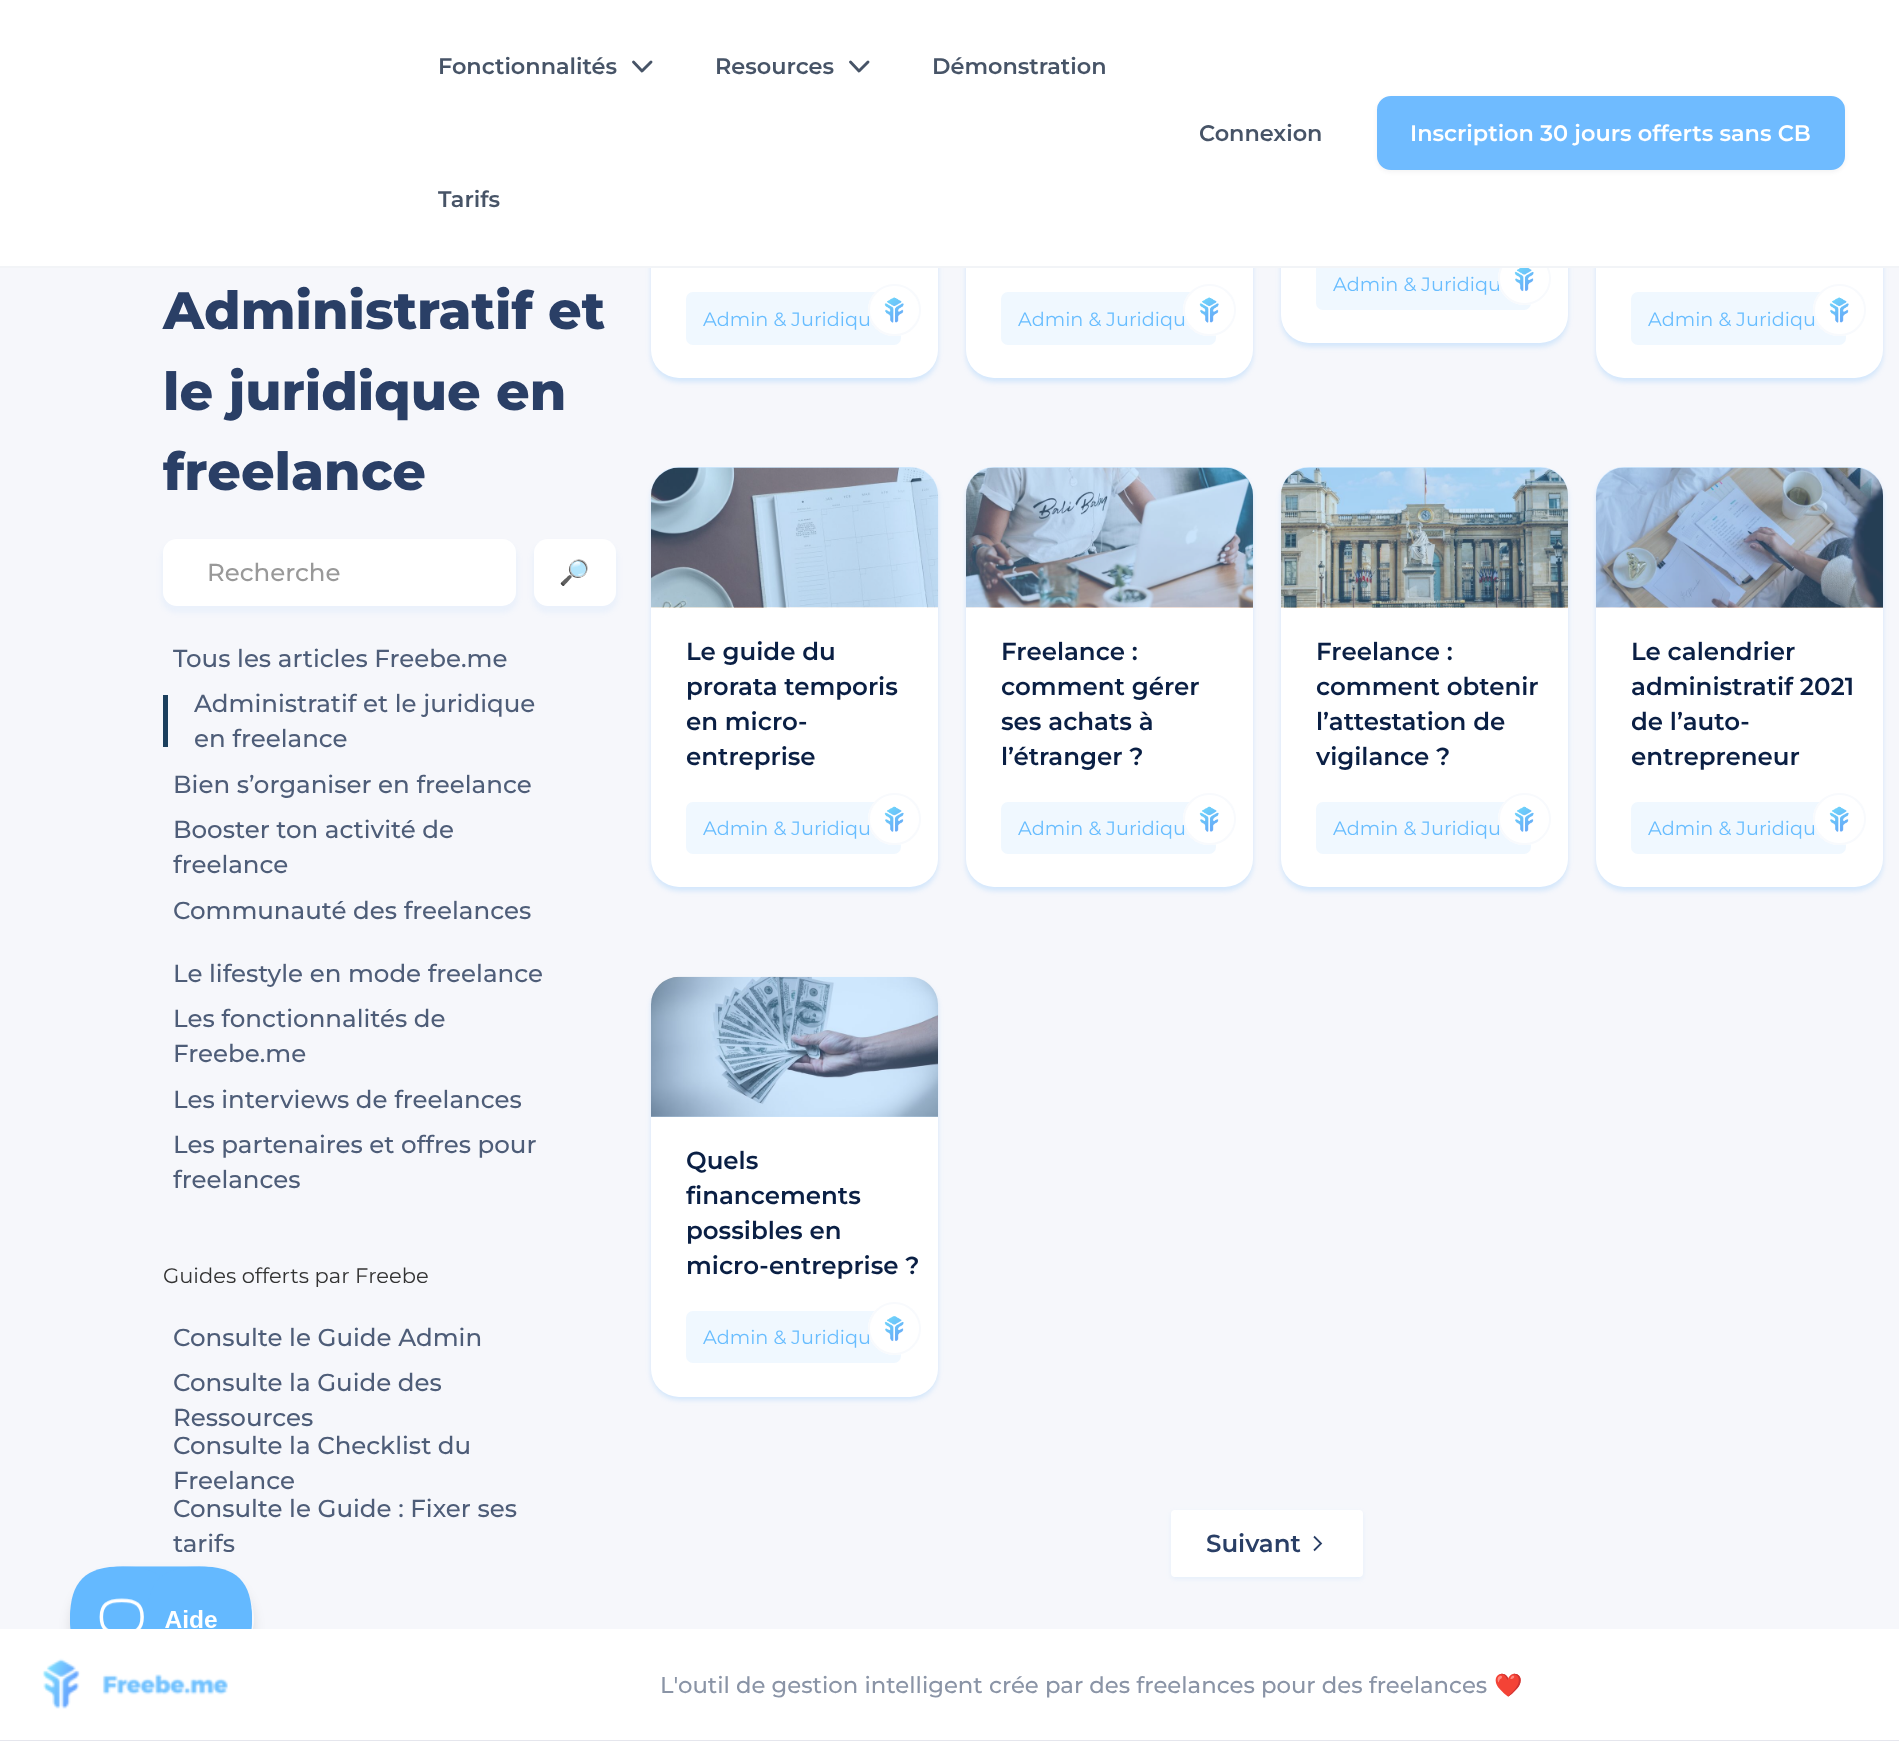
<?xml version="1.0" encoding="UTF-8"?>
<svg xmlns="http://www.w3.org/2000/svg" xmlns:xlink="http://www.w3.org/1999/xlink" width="1899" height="1741">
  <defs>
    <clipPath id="clip1"><path d="M 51 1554 h 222 v 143 h -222 z m 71.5 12 h 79 c 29 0 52.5 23.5 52.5 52.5 c 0 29 -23.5 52.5 -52.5 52.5 h -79 c -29 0 -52.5 -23.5 -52.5 -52.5 c 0 -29 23.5 -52.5 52.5 -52.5 z" clip-rule="evenodd" /></clipPath>
    <clipPath id="clip2"><rect y="210" width="634" height="1342" /></clipPath>
  </defs>
  <rect width="100%" height="100%" fill="#f6f7fb" />
  <rect x="161" y="543" width="357" height="70" rx="16" fill="#72b4ff" fill-opacity="0.08" filter="blur(2.5px)" />
  <rect x="163" y="539" width="353" height="67" rx="14" fill="#ffffff" />
  <rect x="532" y="543" width="86" height="70" rx="16" fill="#72b4ff" fill-opacity="0.08" filter="blur(2.5px)" />
  <rect x="534" y="539" width="82" height="67" rx="14" fill="#ffffff" />
  <rect x="163" y="695" width="5" height="52" fill="#1b3f5d" />
  <rect x="1281" y="-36" width="287" height="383" rx="28" fill="#6fbbff" fill-opacity="0.26" filter="blur(2.5px)" />
  <rect x="1281" y="-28" width="287" height="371" rx="28" fill="#ffffff" />
  <rect x="1316" y="257" width="215" height="53" rx="7" fill="#f0f8ff" />
  <rect x="651" y="-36" width="287" height="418" rx="28" fill="#6fbbff" fill-opacity="0.26" filter="blur(2.5px)" />
  <rect x="651" y="-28" width="287" height="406" rx="28" fill="#ffffff" />
  <rect x="686" y="292" width="215" height="53" rx="7" fill="#f0f8ff" />
  <rect x="966" y="-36" width="287" height="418" rx="28" fill="#6fbbff" fill-opacity="0.26" filter="blur(2.5px)" />
  <rect x="966" y="-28" width="287" height="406" rx="28" fill="#ffffff" />
  <rect x="1001" y="292" width="215" height="53" rx="7" fill="#f0f8ff" />
  <rect x="1596" y="-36" width="287" height="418" rx="28" fill="#6fbbff" fill-opacity="0.26" filter="blur(2.5px)" />
  <rect x="1596" y="-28" width="287" height="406" rx="28" fill="#ffffff" />
  <rect x="1631" y="292" width="215" height="53" rx="7" fill="#f0f8ff" />
  <rect x="651" y="471" width="287" height="420" rx="28" fill="#6fbbff" fill-opacity="0.26" filter="blur(2.5px)" />
  <rect x="651" y="467" width="287" height="420" rx="28" fill="#ffffff" />
  <image x="651" y="467" width="287" height="141" xlink:href="image3.png" />
  <path d="M 679 467 h 231 c 15.5 0 28 12.5 28 28 v 112 h -287 v -112 c 0 -15.5 12.5 -28 28 -28 z" fill="#6fbbff" fill-opacity="0.33" />
  <rect x="686" y="802" width="215" height="52" rx="7" fill="#f0f8ff" />
  <rect x="966" y="471" width="287" height="420" rx="28" fill="#6fbbff" fill-opacity="0.26" filter="blur(2.5px)" />
  <rect x="966" y="467" width="287" height="420" rx="28" fill="#ffffff" />
  <image x="966" y="467" width="287" height="141" xlink:href="image5.png" />
  <path d="M 994 467 h 231 c 15.5 0 28 12.5 28 28 v 112 h -287 v -112 c 0 -15.5 12.5 -28 28 -28 z" fill="#6fbbff" fill-opacity="0.33" />
  <rect x="1001" y="802" width="215" height="52" rx="7" fill="#f0f8ff" />
  <rect x="1281" y="471" width="287" height="420" rx="28" fill="#6fbbff" fill-opacity="0.26" filter="blur(2.5px)" />
  <rect x="1281" y="467" width="287" height="420" rx="28" fill="#ffffff" />
  <image x="1281" y="467" width="287" height="141" xlink:href="image6.png" />
  <path d="M 1309 467 h 231 c 15.5 0 28 12.5 28 28 v 112 h -287 v -112 c 0 -15.5 12.5 -28 28 -28 z" fill="#6fbbff" fill-opacity="0.33" />
  <rect x="1316" y="802" width="215" height="52" rx="7" fill="#f0f8ff" />
  <rect x="1596" y="471" width="287" height="420" rx="28" fill="#6fbbff" fill-opacity="0.26" filter="blur(2.5px)" />
  <rect x="1596" y="467" width="287" height="420" rx="28" fill="#ffffff" />
  <image x="1596" y="467" width="287" height="141" xlink:href="image7.png" />
  <path d="M 1624 467 h 231 c 15.5 0 28 12.5 28 28 v 112 h -287 v -112 c 0 -15.5 12.5 -28 28 -28 z" fill="#6fbbff" fill-opacity="0.33" />
  <rect x="1631" y="802" width="215" height="52" rx="7" fill="#f0f8ff" />
  <rect x="651" y="980" width="287" height="420" rx="28" fill="#6fbbff" fill-opacity="0.26" filter="blur(2.5px)" />
  <rect x="651" y="977" width="287" height="420" rx="28" fill="#ffffff" />
  <image x="651" y="976" width="287" height="141" xlink:href="image8.png" />
  <path d="M 679 977 h 231 c 15.5 0 28 12.5 28 28 v 112 h -287 v -112 c 0 -15.5 12.5 -28 28 -28 z" fill="#6fbbff" fill-opacity="0.33" />
  <rect x="686" y="1311" width="215" height="52" rx="7" fill="#f0f8ff" />
  <rect x="1171" y="1512" width="192" height="67" rx="4" fill="#70c0fe" fill-opacity="0.12" filter="blur(2.5px)" />
  <rect x="1171" y="1510" width="192" height="67" rx="4" fill="#ffffff" />
  <path d="M 1314 1536.5 l 7 7 l -7 7" fill="none" stroke="#2a3f66" stroke-width="1.8" />
  <g clip-path="url(#clip1)">
    <rect x="70" y="1573" width="184" height="105" rx="52.5" fill="#000000" fill-opacity="0.1" filter="blur(6px)" />
  </g>
  <image x="70" y="1566" width="182" height="63" xlink:href="image10.png" />
  <rect y="1629" width="1899" height="111" fill="#ffffff" />
  <rect y="1740" width="1899" height="1" fill="#e5e6ed" />
  <image x="42" y="1658" width="186" height="51" xlink:href="image11.png" />
  <text x="163" y="329" style="font-family: Montserrat; font-size: 52.5px; font-weight: 800; fill: #2a3f66">Administratif et</text>
  <text x="163" y="410" style="font-family: Montserrat; font-size: 52.5px; font-weight: 800; fill: #2a3f66">le juridique en</text>
  <text x="163" y="490" style="font-family: Montserrat; font-size: 52.5px; font-weight: 800; fill: #2a3f66">freelance</text>
  <text x="207" y="581" style="font-family: Montserrat; font-size: 24.5px; font-weight: 500; fill: #999999">Recherche</text>
  <text x="559" y="581" style="font-family: Noto Color Emoji; font-size: 24.5px; fill: #68bdff">🔎</text>
  <text x="173" y="667" style="font-family: Montserrat; font-size: 24.5px; font-weight: 500; fill: #4e5d78">Tous les articles Freebe.me</text>
  <text x="194" y="712" style="font-family: Montserrat; font-size: 24.5px; font-weight: 500; fill: #4e5d78">Administratif et le juridique</text>
  <text x="194" y="747" style="font-family: Montserrat; font-size: 24.5px; font-weight: 500; fill: #4e5d78">en freelance</text>
  <text x="173" y="793" style="font-family: Montserrat; font-size: 24.5px; font-weight: 500; fill: #4e5d78">Bien s’organiser en freelance</text>
  <text x="173" y="838" style="font-family: Montserrat; font-size: 24.5px; font-weight: 500; fill: #4e5d78">Booster ton activité de</text>
  <text x="173" y="873" style="font-family: Montserrat; font-size: 24.5px; font-weight: 500; fill: #4e5d78">freelance</text>
  <text x="173" y="919" style="font-family: Montserrat; font-size: 24.5px; font-weight: 500; fill: #4e5d78">Communauté des freelances</text>
  <text x="173" y="982" style="font-family: Montserrat; font-size: 24.5px; font-weight: 500; fill: #4e5d78">Le lifestyle en mode freelance</text>
  <text x="173" y="1027" style="font-family: Montserrat; font-size: 24.5px; font-weight: 500; fill: #4e5d78">Les fonctionnalités de</text>
  <text x="173" y="1062" style="font-family: Montserrat; font-size: 24.5px; font-weight: 500; fill: #4e5d78">Freebe.me</text>
  <text x="173" y="1108" style="font-family: Montserrat; font-size: 24.5px; font-weight: 500; fill: #4e5d78">Les interviews de freelances</text>
  <text x="173" y="1153" style="font-family: Montserrat; font-size: 24.5px; font-weight: 500; fill: #4e5d78">Les partenaires et offres pour</text>
  <text x="173" y="1188" style="font-family: Montserrat; font-size: 24.5px; font-weight: 500; fill: #4e5d78">freelances</text>
  <text x="163" y="1283" style="font-family: Montserrat; font-size: 21px; fill: #333333">Guides offerts par Freebe</text>
  <text x="173" y="1346" style="font-family: Montserrat; font-size: 24.5px; font-weight: 500; fill: #4e5d78">Consulte le Guide Admin</text>
  <text x="173" y="1391" style="font-family: Montserrat; font-size: 24.5px; font-weight: 500; fill: #4e5d78">Consulte la Guide des</text>
  <text x="173" y="1426" style="font-family: Montserrat; font-size: 24.5px; font-weight: 500; fill: #4e5d78">Ressources</text>
  <text x="173" y="1454" style="font-family: Montserrat; font-size: 24.5px; font-weight: 500; fill: #4e5d78">Consulte la Checklist du</text>
  <text x="173" y="1489" style="font-family: Montserrat; font-size: 24.5px; font-weight: 500; fill: #4e5d78">Freelance</text>
  <text x="173" y="1517" style="font-family: Montserrat; font-size: 24.5px; font-weight: 500; fill: #4e5d78">Consulte le Guide : Fixer ses</text>
  <g clip-path="url(#clip2)">
    <text x="173" y="1552" style="font-family: Montserrat; font-size: 24.5px; font-weight: 500; fill: #4e5d78">tarifs</text>
  </g>
  <text x="1333" y="291" style="font-family: Montserrat; font-size: 19.25px; fill: #68bdff">Admin &amp; Juridiqu</text>
  <circle cx="1524.5" cy="278.5" r="26.5" fill="#ffffff" />
  <image x="1514" y="268" width="20" height="24" xlink:href="image1.png" />
  <circle cx="1524.5" cy="278.5" r="25.5" fill="none" stroke="#f8fafd" stroke-width="2" />
  <rect width="1899" height="266" fill="#ffffff" />
  <text x="438" y="207" style="font-family: Montserrat; font-size: 22.4px; font-weight: 600; fill: #475467">Tarifs</text>
  <text x="932" y="74" style="font-family: Montserrat; font-size: 22.4px; font-weight: 600; fill: #475467">Démonstration</text>
  <path d="M 850.5 62 l 8.5 9 l 9 -9" fill="none" stroke="#475467" stroke-width="2.9" stroke-linecap="round" stroke-linejoin="round" />
  <text x="715" y="74" style="font-family: Montserrat; font-size: 22.4px; font-weight: 600; fill: #475467">Resources</text>
  <path d="M 633.5 62 l 8.5 9 l 9 -9" fill="none" stroke="#475467" stroke-width="2.9" stroke-linecap="round" stroke-linejoin="round" />
  <text x="438" y="74" style="font-family: Montserrat; font-size: 22.4px; font-weight: 600; fill: #475467">Fonctionnalités</text>
  <rect x="1377" y="98" width="468" height="74" rx="14" fill="#101828" fill-opacity="0.05" filter="blur(2px)" />
  <rect x="1378" y="97" width="466" height="72" rx="13" fill="#6fbbff" stroke="#6fbbff" stroke-width="2" />
  <text x="1410" y="141" style="font-family: Montserrat; font-size: 22.4px; font-weight: 600; fill: #ffffff">Inscription 30 jours offerts sans CB</text>
  <text x="1199" y="141" style="font-family: Montserrat; font-size: 22.4px; font-weight: 600; fill: #475467">Connexion</text>
  <rect y="266" width="1899" height="2" fill="#f2f4f7" />
  <text x="703" y="326" style="font-family: Montserrat; font-size: 19.25px; fill: #68bdff">Admin &amp; Juridiqu</text>
  <rect x="868" y="284" width="53" height="52" rx="26" fill="#ffffff" />
  <image x="884" y="297" width="20" height="26" xlink:href="image2.png" />
  <rect x="869" y="285" width="51" height="50" rx="25" fill="none" stroke="#f8fafd" stroke-width="2" />
  <text x="1018" y="326" style="font-family: Montserrat; font-size: 19.25px; fill: #68bdff">Admin &amp; Juridiqu</text>
  <rect x="1183" y="284" width="53" height="52" rx="26" fill="#ffffff" />
  <image x="1199" y="297" width="20" height="26" xlink:href="image2.png" />
  <rect x="1184" y="285" width="51" height="50" rx="25" fill="none" stroke="#f8fafd" stroke-width="2" />
  <text x="1648" y="326" style="font-family: Montserrat; font-size: 19.25px; fill: #68bdff">Admin &amp; Juridiqu</text>
  <rect x="1813" y="284" width="53" height="52" rx="26" fill="#ffffff" />
  <image x="1829" y="297" width="20" height="26" xlink:href="image2.png" />
  <rect x="1814" y="285" width="51" height="50" rx="25" fill="none" stroke="#f8fafd" stroke-width="2" />
  <text x="686" y="660" style="font-family: Montserrat; font-size: 24.5px; font-weight: 600; fill: #0a1f44">Le guide du</text>
  <text x="686" y="695" style="font-family: Montserrat; font-size: 24.5px; font-weight: 600; fill: #0a1f44">prorata temporis</text>
  <text x="686" y="730" style="font-family: Montserrat; font-size: 24.5px; font-weight: 600; fill: #0a1f44">en micro-</text>
  <text x="686" y="765" style="font-family: Montserrat; font-size: 24.5px; font-weight: 600; fill: #0a1f44">entreprise</text>
  <text x="703" y="835" style="font-family: Montserrat; font-size: 19.25px; fill: #68bdff">Admin &amp; Juridiqu</text>
  <rect x="868" y="793" width="53" height="52" rx="26" fill="#ffffff" />
  <image x="884" y="806" width="20" height="26" xlink:href="image4.png" />
  <rect x="869" y="794" width="51" height="50" rx="25" fill="none" stroke="#f8fafd" stroke-width="2" />
  <text x="1001" y="660" style="font-family: Montserrat; font-size: 24.5px; font-weight: 600; fill: #0a1f44">Freelance :</text>
  <text x="1001" y="695" style="font-family: Montserrat; font-size: 24.5px; font-weight: 600; fill: #0a1f44">comment gérer</text>
  <text x="1001" y="730" style="font-family: Montserrat; font-size: 24.5px; font-weight: 600; fill: #0a1f44">ses achats à</text>
  <text x="1001" y="765" style="font-family: Montserrat; font-size: 24.5px; font-weight: 600; fill: #0a1f44">l’étranger ?</text>
  <text x="1018" y="835" style="font-family: Montserrat; font-size: 19.25px; fill: #68bdff">Admin &amp; Juridiqu</text>
  <rect x="1183" y="793" width="53" height="52" rx="26" fill="#ffffff" />
  <image x="1199" y="806" width="20" height="26" xlink:href="image4.png" />
  <rect x="1184" y="794" width="51" height="50" rx="25" fill="none" stroke="#f8fafd" stroke-width="2" />
  <text x="1316" y="660" style="font-family: Montserrat; font-size: 24.5px; font-weight: 600; fill: #0a1f44">Freelance :</text>
  <text x="1316" y="695" style="font-family: Montserrat; font-size: 24.5px; font-weight: 600; fill: #0a1f44">comment obtenir</text>
  <text x="1316" y="730" style="font-family: Montserrat; font-size: 24.5px; font-weight: 600; fill: #0a1f44">l’attestation de</text>
  <text x="1316" y="765" style="font-family: Montserrat; font-size: 24.5px; font-weight: 600; fill: #0a1f44">vigilance ?</text>
  <text x="1333" y="835" style="font-family: Montserrat; font-size: 19.25px; fill: #68bdff">Admin &amp; Juridiqu</text>
  <rect x="1498" y="793" width="53" height="52" rx="26" fill="#ffffff" />
  <image x="1514" y="806" width="20" height="26" xlink:href="image4.png" />
  <rect x="1499" y="794" width="51" height="50" rx="25" fill="none" stroke="#f8fafd" stroke-width="2" />
  <text x="1631" y="660" style="font-family: Montserrat; font-size: 24.5px; font-weight: 600; fill: #0a1f44">Le calendrier</text>
  <text x="1631" y="695" style="font-family: Montserrat; font-size: 24.5px; font-weight: 600; fill: #0a1f44">administratif 2021</text>
  <text x="1631" y="730" style="font-family: Montserrat; font-size: 24.5px; font-weight: 600; fill: #0a1f44">de l’auto-</text>
  <text x="1631" y="765" style="font-family: Montserrat; font-size: 24.5px; font-weight: 600; fill: #0a1f44">entrepreneur</text>
  <text x="1648" y="835" style="font-family: Montserrat; font-size: 19.25px; fill: #68bdff">Admin &amp; Juridiqu</text>
  <rect x="1813" y="793" width="53" height="52" rx="26" fill="#ffffff" />
  <image x="1829" y="806" width="20" height="26" xlink:href="image4.png" />
  <rect x="1814" y="794" width="51" height="50" rx="25" fill="none" stroke="#f8fafd" stroke-width="2" />
  <text x="686" y="1169" style="font-family: Montserrat; font-size: 24.5px; font-weight: 600; fill: #0a1f44">Quels</text>
  <text x="686" y="1204" style="font-family: Montserrat; font-size: 24.5px; font-weight: 600; fill: #0a1f44">financements</text>
  <text x="686" y="1239" style="font-family: Montserrat; font-size: 24.5px; font-weight: 600; fill: #0a1f44">possibles en</text>
  <text x="686" y="1274" style="font-family: Montserrat; font-size: 24.5px; font-weight: 600; fill: #0a1f44">micro-entreprise ?</text>
  <text x="703" y="1344" style="font-family: Montserrat; font-size: 19.25px; fill: #68bdff">Admin &amp; Juridiqu</text>
  <circle cx="894.5" cy="1328.5" r="26.5" fill="#ffffff" />
  <image x="884" y="1316" width="20" height="26" xlink:href="image9.png" />
  <circle cx="894.5" cy="1328.5" r="25.5" fill="none" stroke="#f8fafd" stroke-width="2" />
  <text x="1206" y="1552" style="font-family: Montserrat; font-size: 24.5px; font-weight: 600; fill: #2a3f66">Suivant</text>
  <text x="660" y="1693" style="font-family: Montserrat; font-size: 22.75px; font-weight: 500; fill: #8a94a6">L'outil de gestion intelligent crée par des freelances pour des freelances</text>
  <text x="1494" y="1693" style="font-family: Noto Color Emoji; font-size: 22.75px; fill: #8a94a6">❤️</text>
</svg>
